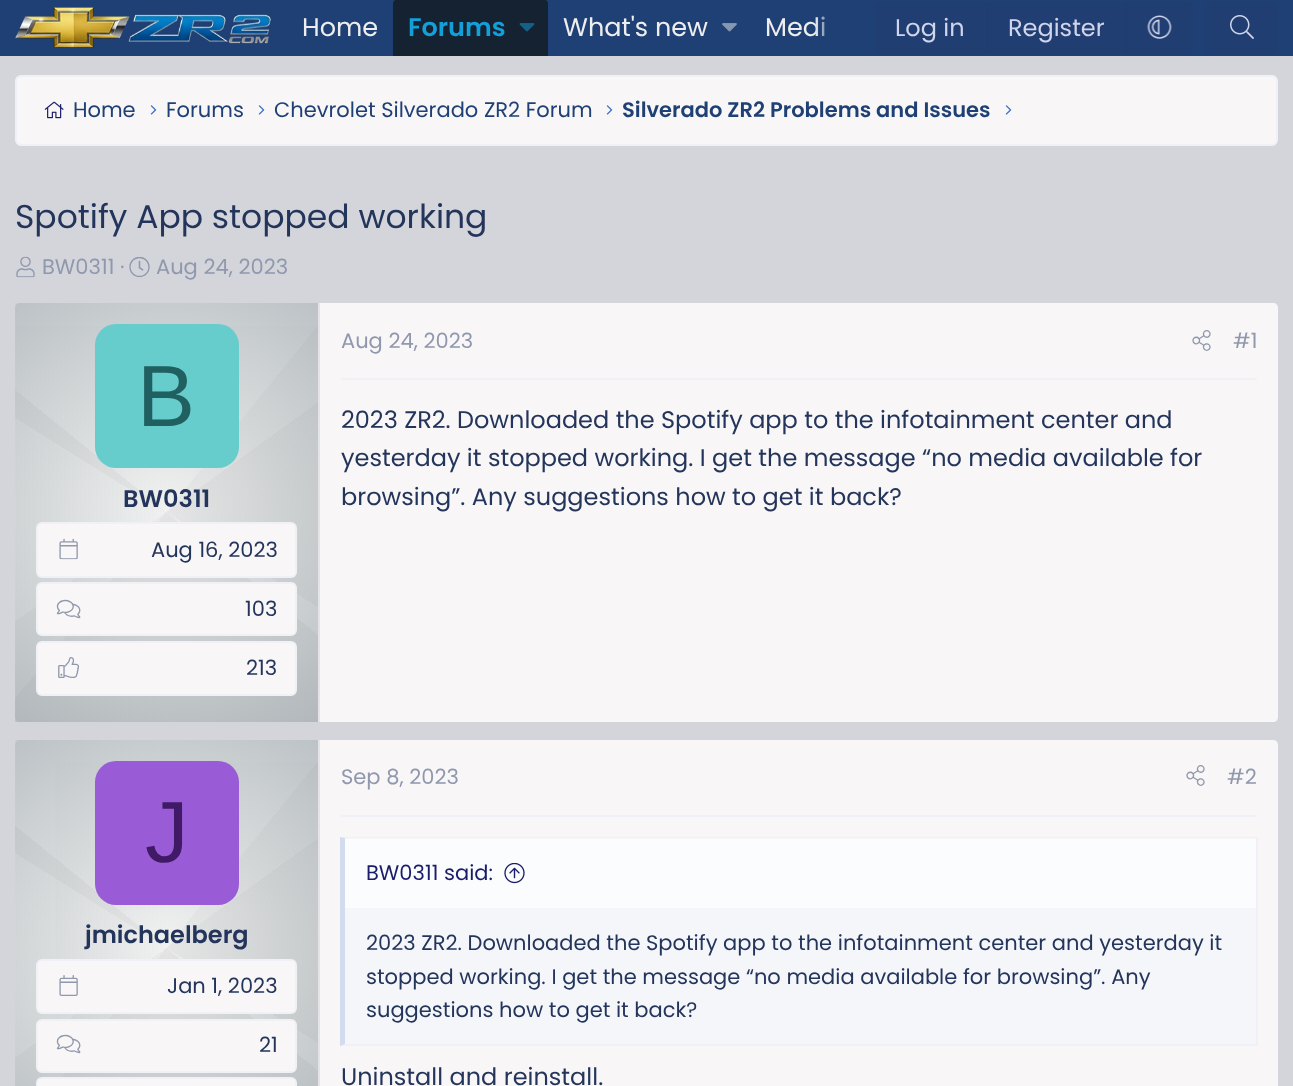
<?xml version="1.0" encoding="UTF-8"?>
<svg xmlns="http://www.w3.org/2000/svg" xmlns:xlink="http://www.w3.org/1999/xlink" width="1293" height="1086">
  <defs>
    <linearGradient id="g1" gradientUnits="userSpaceOnUse" x1="303" y1="294" x2="30" y2="731"><stop offset="0" stop-color="#4f4f4f" stop-opacity="0.05" /><stop offset="0.5" stop-color="#4f4f4f" stop-opacity="0.05" /><stop offset="0.5" stop-color="#f2f2f2" stop-opacity="0.05" /><stop offset="1" stop-color="#f2f2f2" stop-opacity="0.05" /></linearGradient>
    <linearGradient id="g2" gradientUnits="userSpaceOnUse" x1="15" y1="303" x2="318" y2="721"><stop offset="0" stop-color="#fafafa" stop-opacity="0.05" /><stop offset="0.5" stop-color="#fafafa" stop-opacity="0.05" /><stop offset="0.5" stop-color="#6e6e6e" stop-opacity="0.05" /><stop offset="1" stop-color="#6e6e6e" stop-opacity="0.05" /></linearGradient>
    <linearGradient id="g3" gradientUnits="userSpaceOnUse" x1="4.2" y1="713" x2="329" y2="312"><stop offset="0" stop-color="#0d0d0d" stop-opacity="0.05" /><stop offset="0.5" stop-color="#0d0d0d" stop-opacity="0.05" /><stop offset="0.5" stop-color="#bdbdbd" stop-opacity="0.05" /><stop offset="1" stop-color="#bdbdbd" stop-opacity="0.05" /></linearGradient>
    <linearGradient id="g4" gradientUnits="userSpaceOnUse" x1="360" y1="669" x2="-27" y2="355"><stop offset="0" stop-color="#595959" stop-opacity="0.05" /><stop offset="0.5" stop-color="#595959" stop-opacity="0.05" /><stop offset="0.5" stop-color="#cfcfcf" stop-opacity="0.05" /><stop offset="1" stop-color="#cfcfcf" stop-opacity="0.05" /></linearGradient>
    <radialGradient id="g5" gradientUnits="userSpaceOnUse" cx="167" cy="512" r="258"><stop offset="0" stop-color="#40555e" stop-opacity="0" /><stop offset="1" stop-color="#40555e" stop-opacity="0.31" /></radialGradient>
    <linearGradient id="g6" gradientUnits="userSpaceOnUse" x1="303" y1="730" x2="30" y2="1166"><stop offset="0" stop-color="#4f4f4f" stop-opacity="0.05" /><stop offset="0.5" stop-color="#4f4f4f" stop-opacity="0.05" /><stop offset="0.5" stop-color="#f2f2f2" stop-opacity="0.05" /><stop offset="1" stop-color="#f2f2f2" stop-opacity="0.05" /></linearGradient>
    <linearGradient id="g7" gradientUnits="userSpaceOnUse" x1="15" y1="739" x2="318" y2="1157"><stop offset="0" stop-color="#fafafa" stop-opacity="0.05" /><stop offset="0.5" stop-color="#fafafa" stop-opacity="0.05" /><stop offset="0.5" stop-color="#6e6e6e" stop-opacity="0.05" /><stop offset="1" stop-color="#6e6e6e" stop-opacity="0.05" /></linearGradient>
    <linearGradient id="g8" gradientUnits="userSpaceOnUse" x1="4.5" y1="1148" x2="328" y2="748"><stop offset="0" stop-color="#0d0d0d" stop-opacity="0.05" /><stop offset="0.5" stop-color="#0d0d0d" stop-opacity="0.05" /><stop offset="0.5" stop-color="#bdbdbd" stop-opacity="0.05" /><stop offset="1" stop-color="#bdbdbd" stop-opacity="0.05" /></linearGradient>
    <linearGradient id="g9" gradientUnits="userSpaceOnUse" x1="360" y1="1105" x2="-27" y2="791"><stop offset="0" stop-color="#595959" stop-opacity="0.05" /><stop offset="0.5" stop-color="#595959" stop-opacity="0.05" /><stop offset="0.5" stop-color="#cfcfcf" stop-opacity="0.05" /><stop offset="1" stop-color="#cfcfcf" stop-opacity="0.05" /></linearGradient>
    <radialGradient id="g10" gradientUnits="userSpaceOnUse" cx="167" cy="948" r="258"><stop offset="0" stop-color="#40555e" stop-opacity="0" /><stop offset="1" stop-color="#40555e" stop-opacity="0.31" /></radialGradient>
    <linearGradient id="g11" gradientUnits="userSpaceOnUse" x1="815" y1="28" x2="875" y2="28"><stop offset="0" stop-color="#1f4075" stop-opacity="0" /><stop offset="0.33" stop-color="#1f4075" /></linearGradient>
  </defs>
  <rect width="100%" height="100%" fill="#d3d5da" />
  <rect width="1293" height="56" fill="#1f4075" />
  <image x="15" y="7" width="256" height="41" xlink:href="image1.png" />
  <path d="M 396 0 h 149 c 1.5 0 3 1.5 3 3 v 53 h -155 v -53 c 0 -1.5 1.5 -3 3 -3 z" fill="#152231" />
  <image x="519" y="23" width="16" height="9" xlink:href="image2.png" />
  <image x="722" y="23" width="15" height="9" xlink:href="image3.png" />
  <path d="M 881 2 h 306 c 3.5 0 6 2.5 6 6 v 46 h -318 v -46 c 0 -3.5 2.5 -6 6 -6 z" fill="#203e71" />
  <rect x="986" y="2" width="2" height="52" fill="#213d6e" />
  <rect x="1125" y="2" width="2" height="52" fill="#213d6e" />
  <image x="1147" y="15" width="25" height="24" xlink:href="image4.png" />
  <path d="M 1211 2 h 61 c 3.5 0 6 2.5 6 6 v 46 h -73 v -46 c 0 -3.5 2.5 -6 6 -6 z" fill="#203e71" />
  <image x="1230" y="15" width="24" height="24" xlink:href="image5.png" />
  <rect x="16" y="76" width="1261" height="69" rx="5" fill="#f8f6f6" stroke="#eff1f6" stroke-width="2" />
  <image x="44" y="101" width="20" height="18" xlink:href="image6.png" />
  <image x="150" y="105" width="7" height="10" xlink:href="image7.png" />
  <image x="258" y="105" width="7" height="10" xlink:href="image7.png" />
  <image x="606" y="105" width="7" height="10" xlink:href="image7.png" />
  <image x="1005" y="105" width="7" height="10" xlink:href="image7.png" />
  <image x="16" y="256" width="19" height="22" xlink:href="image8.png" />
  <image x="129" y="257" width="21" height="20" xlink:href="image9.png" />
  <path d="M 20 303 h 300 v 419 h -300 c -3 0 -5 -2 -5 -5 v -409 c 0 -3 2 -5 5 -5 z" fill="#ffffff" />
  <rect x="15" y="303" width="303" height="304" fill="url(#g1)" />
  <rect x="15" y="403" width="303" height="319" fill="url(#g2)" />
  <rect x="15" y="303" width="303" height="419" fill="url(#g3)" />
  <rect x="15" y="326" width="303" height="396" fill="url(#g4)" />
  <path d="M 20 303 h 298 v 419 h -298 c -3 0 -5 -2 -5 -5 v -409 c 0 -3 2 -5 5 -5 z" fill="url(#g5)" />
  <rect x="318" y="303" width="2" height="419" fill="#e4e4e7" />
  <rect x="95" y="324" width="144" height="144" rx="21" fill="#66cccc" />
  <rect x="37" y="523" width="259" height="54" rx="5" fill="#f8f6f6" stroke="#eff1f6" stroke-width="2" />
  <image x="59" y="538" width="19" height="22" xlink:href="image10.png" />
  <rect x="37" y="583" width="259" height="52" rx="5" fill="#f8f6f6" stroke="#eff1f6" stroke-width="2" />
  <image x="56" y="599" width="25" height="20" xlink:href="image11.png" />
  <rect x="37" y="642" width="259" height="53" rx="5" fill="#f8f6f6" stroke="#eff1f6" stroke-width="2" />
  <image x="58" y="657" width="22" height="21" xlink:href="image12.png" />
  <path d="M 320 303 h 953 c 3 0 5 2 5 5 v 409 c 0 3 -2 5 -5 5 h -953 z" fill="#f8f6f6" />
  <rect x="341" y="378" width="916" height="2" fill="#eff1f6" />
  <image x="1192" y="330" width="19" height="21" xlink:href="image13.png" />
  <path d="M 20 740 h 300 v 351 h -300 c -3 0 -5 -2 -5 -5 v -341 c 0 -3 2 -5 5 -5 z" fill="#ffffff" />
  <rect x="15" y="740" width="303" height="303" fill="url(#g6)" />
  <rect x="15" y="839" width="303" height="247" fill="url(#g7)" />
  <rect x="15" y="740" width="303" height="346" fill="url(#g8)" />
  <rect x="55" y="762" width="263" height="324" fill="url(#g9)" />
  <path d="M 20 740 h 298 v 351 h -298 c -3 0 -5 -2 -5 -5 v -341 c 0 -3 2 -5 5 -5 z" fill="url(#g10)" />
  <rect x="318" y="740" width="2" height="346" fill="#e4e4e7" />
  <rect x="95" y="761" width="144" height="144" rx="21" fill="#995cd6" />
  <rect x="37" y="960" width="259" height="53" rx="5" fill="#f8f6f6" stroke="#eff1f6" stroke-width="2" />
  <image x="59" y="975" width="19" height="21" xlink:href="image14.png" />
  <rect x="37" y="1020" width="259" height="52" rx="5" fill="#f8f6f6" stroke="#eff1f6" stroke-width="2" />
  <image x="56" y="1034" width="25" height="20" xlink:href="image11.png" />
  <rect x="37" y="1078" width="259" height="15" rx="5" fill="#f8f6f6" stroke="#eff1f6" stroke-width="2" />
  <path d="M 320 740 h 953 c 3 0 5 2 5 5 v 341 c 0 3 -2 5 -5 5 h -953 z" fill="#f8f6f6" />
  <rect x="341" y="815" width="916" height="2" fill="#eff1f6" />
  <image x="1186" y="765" width="19" height="21" xlink:href="image13.png" />
  <rect x="345" y="908" width="911" height="136" fill="#f4f6fa" />
  <path d="M 340 837 h 917 l -1 1 h -911 z" fill="#eff1f6" />
  <rect x="1256" y="837" width="2" height="209" fill="#eff1f6" />
  <path d="M 1257 1046 h -917 l 5 -2 h 911 z" fill="#eff1f6" />
  <path d="M 340 1046 v -209 l 5 1 v 206 z" fill="#d3dcee" />
  <rect x="345" y="839" width="911" height="69" fill="#fbfcfd" />
  <image x="504" y="863" width="21" height="21" xlink:href="image15.png" />
  <text x="302" y="36" style="font-family: Poppins; font-size: 25.5px; fill: #eeeeee">Home</text>
  <text x="408" y="36" style="font-family: Poppins; font-size: 25.5px; font-weight: 600; fill: #13a0d9">Forums</text>
  <text x="563" y="36" style="font-family: Poppins; font-size: 25.5px; fill: #eeeeee">What's new</text>
  <text x="765" y="36" style="font-family: Poppins; font-size: 25.5px; fill: #eeeeee">Medi</text>
  <rect x="815" y="16" width="11" height="20" fill="url(#g11)" />
  <text x="895" y="36" style="font-family: Poppins; font-size: 24px; fill: #d0d5ec">Log in</text>
  <text x="1008" y="36" style="font-family: Poppins; font-size: 24px; fill: #d0d5ec">Register</text>
  <text x="73" y="117" style="font-family: Poppins; font-size: 21px; fill: #1f4075">Home</text>
  <text x="166" y="117" style="font-family: Poppins; font-size: 21px; fill: #1f4075">Forums</text>
  <text x="274" y="117" style="font-family: Poppins; font-size: 21px; fill: #1f4075">Chevrolet Silverado ZR2 Forum</text>
  <text x="622" y="117" style="font-family: Poppins; font-size: 21px; font-weight: 600; fill: #1f4075">Silverado ZR2 Problems and Issues</text>
  <text x="15" y="228" style="font-family: Poppins; font-size: 33px; fill: #24355c">Spotify App stopped working</text>
  <text x="42" y="274" style="font-family: Poppins; font-size: 21px; fill: #9098ad">BW0311 ·</text>
  <text x="156" y="274" style="font-family: Poppins; font-size: 21px; fill: #9098ad">Aug 24, 2023</text>
  <text x="137" y="426" style="font-family: Liberation Sans; font-size: 87px; fill: #206060">B</text>
  <text x="123" y="507" style="font-family: Poppins; font-size: 24px; font-weight: 600; fill: #24355c">BW0311</text>
  <text x="151" y="557" style="font-family: Poppins; font-size: 21px; fill: #24355c">Aug 16, 2023</text>
  <text x="245" y="616" style="font-family: Poppins; font-size: 21px; fill: #24355c">103</text>
  <text x="246" y="675" style="font-family: Poppins; font-size: 21px; fill: #24355c">213</text>
  <text x="341" y="348" style="font-family: Poppins; font-size: 21px; fill: #9098ad">Aug 24, 2023</text>
  <text x="1233" y="348" style="font-family: Poppins; font-size: 21px; fill: #9098ad">#1</text>
  <text x="341" y="428" style="font-family: Poppins; font-size: 24px; fill: #24355c">2023 ZR2. Downloaded the Spotify app to the infotainment center and</text>
  <text x="341" y="466" style="font-family: Poppins; font-size: 24px; fill: #24355c">yesterday it stopped working. I get the message “no media available for</text>
  <text x="341" y="505" style="font-family: Poppins; font-size: 24px; fill: #24355c">browsing”. Any suggestions how to get it back?</text>
  <text x="145" y="862" style="font-family: Liberation Sans; font-size: 87px; fill: #401a66">J</text>
  <text x="85" y="943" style="font-family: Poppins; font-size: 24px; font-weight: 600; fill: #24355c">jmichaelberg</text>
  <text x="167" y="993" style="font-family: Poppins; font-size: 21px; fill: #24355c">Jan 1, 2023</text>
  <text x="259" y="1052" style="font-family: Poppins; font-size: 21px; fill: #24355c">21</text>
  <text x="341" y="784" style="font-family: Poppins; font-size: 21px; fill: #9098ad">Sep 8, 2023</text>
  <text x="1227" y="784" style="font-family: Poppins; font-size: 21px; fill: #9098ad">#2</text>
  <text x="366" y="880" style="font-family: Poppins; font-size: 21px; fill: #1b1c6a">BW0311 said:</text>
  <text x="366" y="950" style="font-family: Poppins; font-size: 21px; fill: #24355c">2023 ZR2. Downloaded the Spotify app to the infotainment center and yesterday it</text>
  <text x="366" y="984" style="font-family: Poppins; font-size: 21px; fill: #24355c">stopped working. I get the message “no media available for browsing”. Any</text>
  <text x="366" y="1017" style="font-family: Poppins; font-size: 21px; fill: #24355c">suggestions how to get it back?</text>
  <text x="341" y="1085" style="font-family: Poppins; font-size: 24px; fill: #24355c">Uninstall and reinstall.</text>
</svg>
